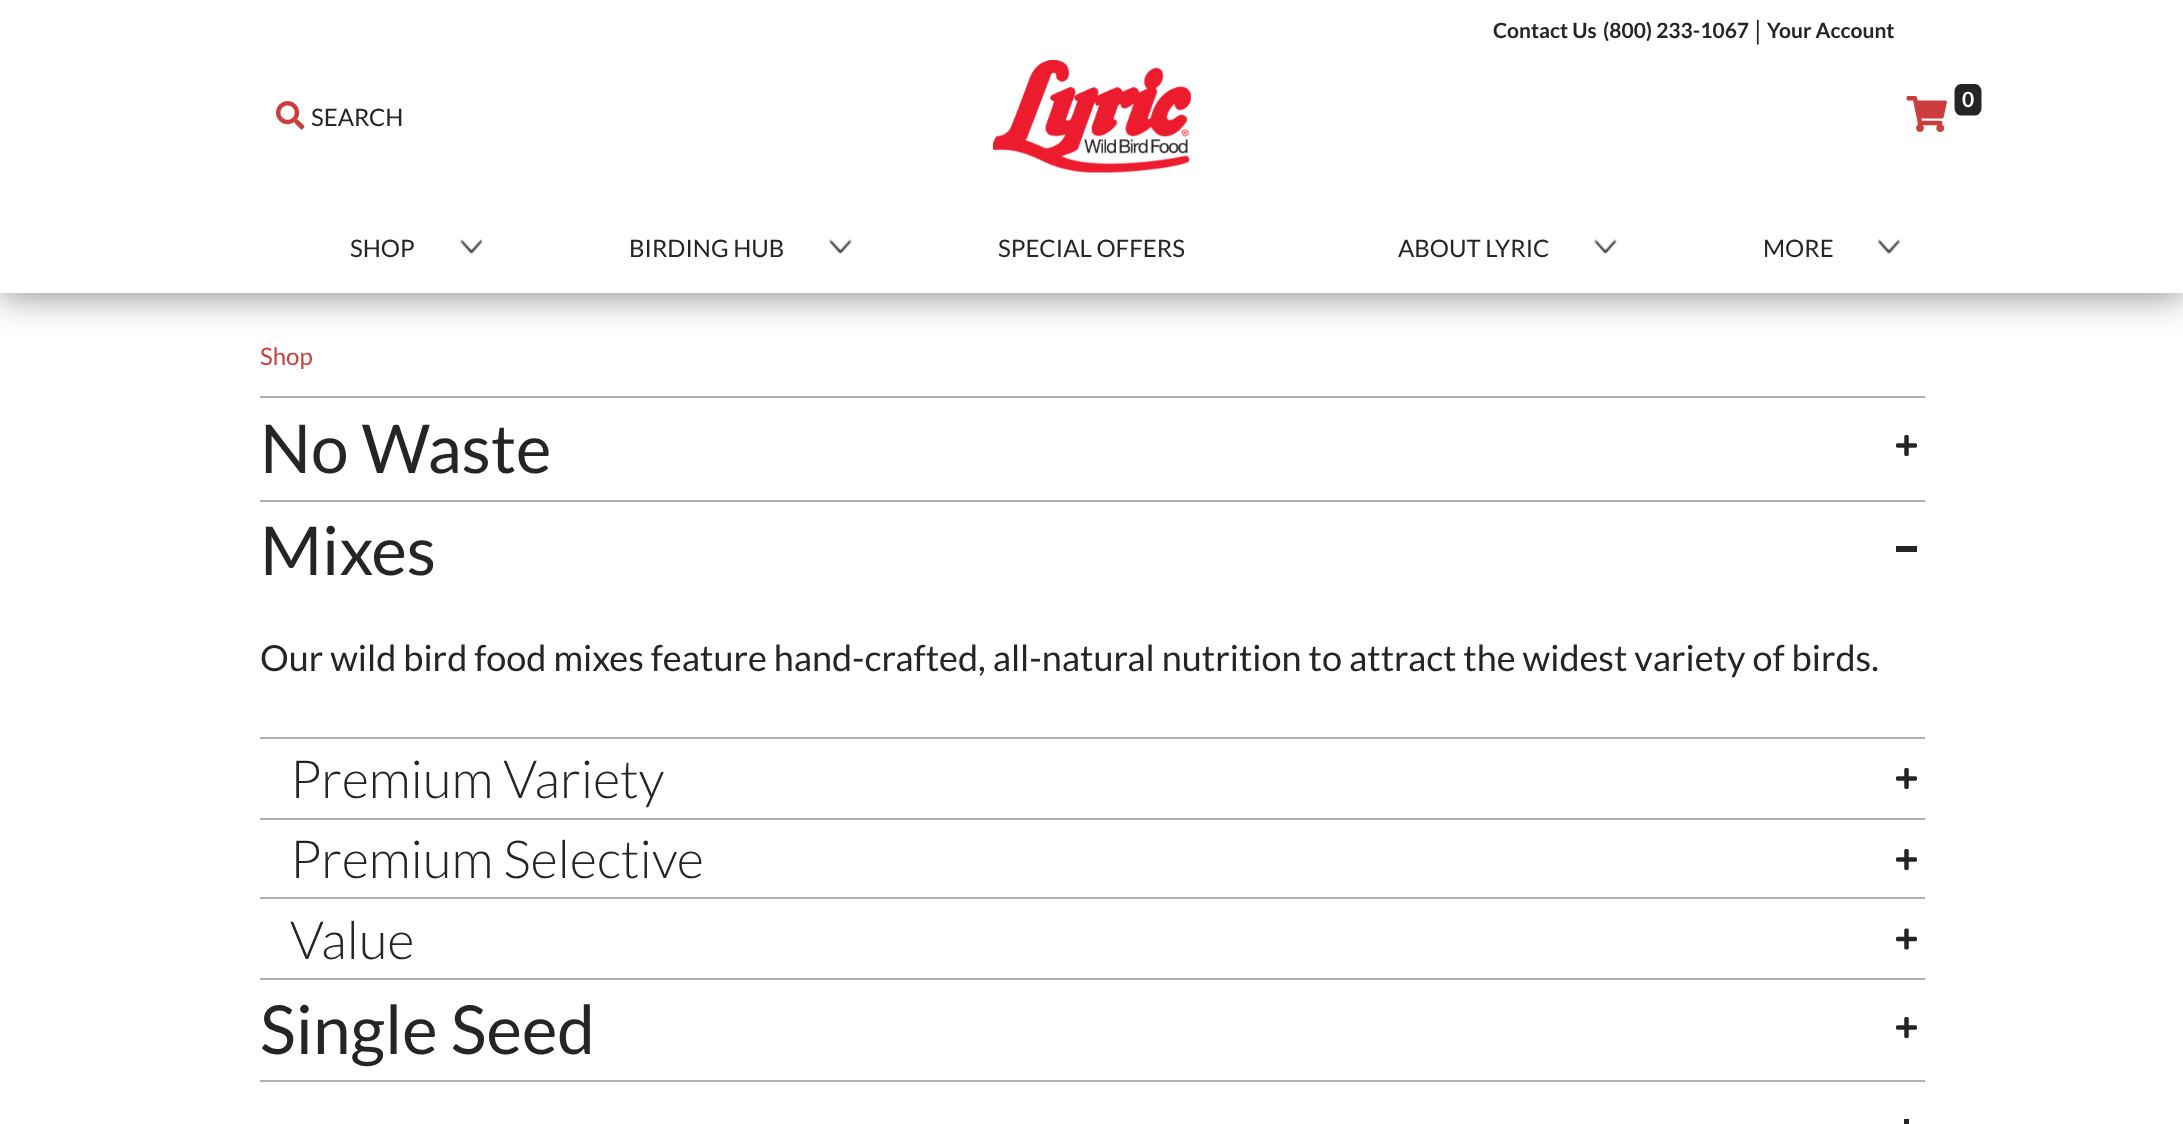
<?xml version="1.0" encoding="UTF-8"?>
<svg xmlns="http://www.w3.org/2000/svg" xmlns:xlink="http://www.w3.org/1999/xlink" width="2183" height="1124">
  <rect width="100%" height="100%" fill="#ffffff" />
  <rect x="-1" y="-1" width="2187" height="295" fill="#000000" fill-opacity="0.49" filter="blur(19px)" />
  <rect width="2183" height="293" fill="#ffffff" />
  <image x="992" y="60" width="200" height="113" xlink:href="image1.png" />
  <image x="1906" y="96" width="41" height="36" xlink:href="image2.png" />
  <path d="M 1961 84 h 14 c 3.5 0 6.5 3.5 6.5 8 v 15.5 c 0 4.5 -3 8 -6.5 8 h -14 c -3.5 0 -6.5 -3.5 -6.5 -8 v -15.5 c 0 -4.5 3 -8 6.5 -8 z" fill="#252525" />
  <image x="276" y="101" width="29" height="29" xlink:href="image3.png" />
  <image x="460" y="239" width="23" height="15" xlink:href="image4.png" />
  <image x="829" y="239" width="23" height="15" xlink:href="image4.png" />
  <image x="1594" y="239" width="23" height="15" xlink:href="image4.png" />
  <image x="1878" y="239" width="23" height="15" xlink:href="image5.png" />
  <rect x="260" y="396" width="1665" height="2" fill="#adb0ae" />
  <image x="1896" y="435" width="21" height="21" xlink:href="image6.png" />
  <rect x="260" y="500" width="1665" height="2" fill="#adb0ae" />
  <rect x="1896" y="546" width="21" height="6" fill="#252525" />
  <rect x="260" y="737" width="1665" height="2" fill="#adb0ae" />
  <image x="1896" y="768" width="21" height="21" xlink:href="image6.png" />
  <rect x="260" y="818" width="1665" height="2" fill="#adb0ae" />
  <image x="1896" y="849" width="21" height="21" xlink:href="image6.png" />
  <rect x="260" y="897" width="1665" height="2" fill="#adb0ae" />
  <image x="1896" y="928" width="21" height="22" xlink:href="image7.png" />
  <rect x="260" y="978" width="1665" height="2" fill="#adb0ae" />
  <image x="1896" y="1017" width="21" height="21" xlink:href="image6.png" />
  <rect x="260" y="1080" width="1665" height="2" fill="#adb0ae" />
  <rect x="1904" y="1119" width="5" height="5" fill="#252525" />
  <text x="1493" y="38" style="font-family: Lato; font-size: 21px; font-weight: bold; fill: #252525">Contact Us</text>
  <text x="1603" y="38" style="font-family: Lato; font-size: 21px; font-weight: bold; fill: #252525">(800) 233-1067</text>
  <text x="1755" y="38" style="font-family: Lora; font-size: 24px; fill: #252525">|</text>
  <text x="1767" y="38" style="font-family: Lato; font-size: 21px; font-weight: bold; fill: #252525">Your Account</text>
  <text x="1962" y="107" style="font-family: Lato; font-size: 21px; font-weight: bold; fill: #ffffff">0</text>
  <text x="311" y="126" style="font-family: Lato; font-size: 24px; fill: #252525">SEARCH</text>
  <text x="350" y="257" style="font-family: Lato; font-size: 24px; fill: #252525">SHOP</text>
  <text x="629" y="257" style="font-family: Lato; font-size: 24px; fill: #252525">BIRDING HUB</text>
  <text x="998" y="257" style="font-family: Lato; font-size: 24px; fill: #252525">SPECIAL OFFERS</text>
  <text x="1398" y="257" style="font-family: Lato; font-size: 24px; fill: #252525">ABOUT LYRIC</text>
  <text x="1763" y="257" style="font-family: Lato; font-size: 24px; fill: #252525">MORE</text>
  <text x="260" y="365" style="font-family: Lato; font-size: 24px; fill: #ce3d3d">Shop</text>
  <text x="260" y="473" style="font-family: Lato; font-size: 67.5px; fill: #252525">No Waste</text>
  <text x="260" y="575" style="font-family: Lato; font-size: 67.5px; fill: #252525">Mixes</text>
  <text x="260" y="671" style="font-family: Lato; font-size: 36px; fill: #252525">Our wild bird food mixes feature hand-crafted, all-natural nutrition to attract the widest variety of birds.</text>
  <text x="290" y="798" style="font-family: Lato; font-size: 52.5px; font-weight: 300; fill: #252525">Premium Variety</text>
  <text x="290" y="878" style="font-family: Lato; font-size: 52.5px; font-weight: 300; fill: #252525">Premium Selective</text>
  <text x="290" y="959" style="font-family: Lato; font-size: 52.5px; font-weight: 300; fill: #252525">Value</text>
  <text x="260" y="1054" style="font-family: Lato; font-size: 67.5px; fill: #252525">Single Seed</text>
</svg>
